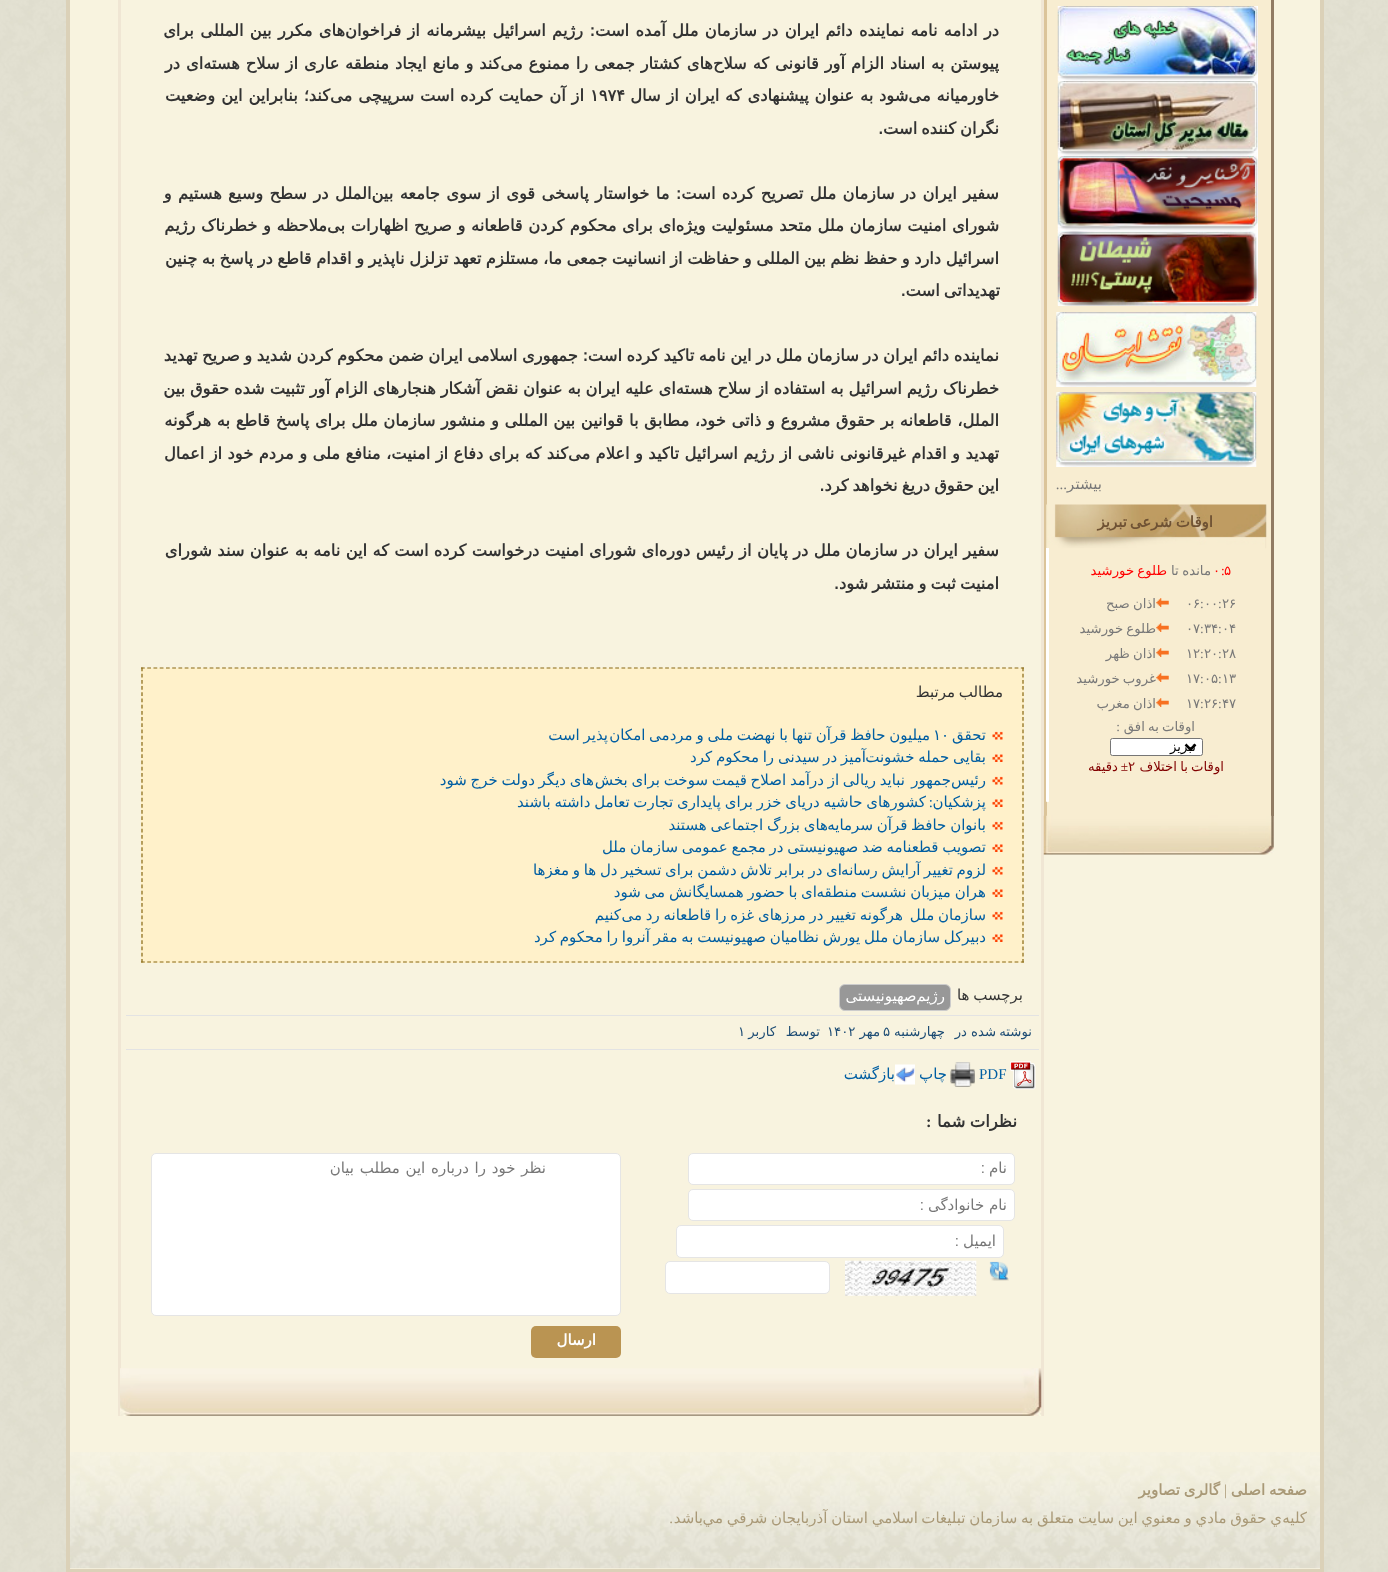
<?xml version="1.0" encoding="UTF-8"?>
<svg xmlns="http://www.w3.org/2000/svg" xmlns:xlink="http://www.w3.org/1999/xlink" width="1388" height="1572">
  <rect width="100%" height="100%" fill="#ffffff" />
  <image x="0" y="0" width="1388" height="1572" xlink:href="image1.png" />
  <rect x="1320" width="4" height="1572" fill="#dbd1b8" />
  <rect x="66" y="1569" width="1258" height="3" fill="#dbd1b8" />
  <rect x="66" width="4" height="1572" fill="#dbd1b8" />
  <rect x="70" width="1250" height="1569" fill="#f8f3df" />
  <rect x="1047" width="224" height="816" fill="#f8edd1" />
  <path d="M 1274 -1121 v 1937 h -3 v -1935 z" fill="#917b63" />
  <rect x="1044" width="3" height="816" fill="#dbc49a" />
  <rect x="1058" y="6" width="200" height="300" fill="#ffffff" />
  <image x="1057" y="6" width="201" height="75" xlink:href="image2.png" />
  <image x="1057" y="81" width="201" height="75" xlink:href="image3.png" />
  <image x="1057" y="155" width="201" height="76" xlink:href="image4.png" />
  <image x="1057" y="231" width="201" height="75" xlink:href="image5.png" />
  <image x="1056" y="312" width="201" height="75" xlink:href="image6.png" />
  <image x="1056" y="392" width="201" height="75" xlink:href="image7.png" />
  <image x="1046" y="504" width="221" height="45" xlink:href="image8.png" />
  <rect x="1046" y="548" width="3" height="253" fill="#ffffff" />
  <image x="1156" y="598" width="13" height="9" xlink:href="image9.png" />
  <image x="1156" y="623" width="13" height="9" xlink:href="image9.png" />
  <image x="1156" y="648" width="13" height="9" xlink:href="image9.png" />
  <image x="1156" y="673" width="13" height="9" xlink:href="image9.png" />
  <image x="1156" y="698" width="13" height="9" xlink:href="image9.png" />
  <rect x="1110.5" y="738.5" width="92" height="17" rx="2" fill="#ffffff" stroke="#767676" />
  <path d="M 1185.5 744.5 l 5 5 l 5 -5" fill="none" stroke="#000000" stroke-width="2.5" />
  <image x="1046" y="801" width="3" height="1" xlink:href="image10.png" />
  <rect x="1041" width="3" height="1416" fill="#f0e6d4" />
  <image x="1043" y="815" width="231" height="40" xlink:href="image11.png" />
  <rect x="118" width="3" height="1416" fill="#f0e6d4" />
  <rect x="141" y="668" width="883" height="295" fill="#fff1ca" />
  <path d="M 141 668 h 883" fill="none" stroke="#876814" stroke-width="1.2" stroke-dasharray="3.75 2.49" />
  <path d="M 1023 667.5 v 295" fill="none" stroke="#876814" stroke-width="1.2" stroke-dasharray="3.75 2.45" />
  <path d="M 141 962 h 883" fill="none" stroke="#876814" stroke-width="1.2" stroke-dasharray="3.75 2.49" />
  <path d="M 142 667.5 v 295" fill="none" stroke="#876814" stroke-width="1.2" stroke-dasharray="3.75 2.45" />
  <image x="992" y="731" width="11" height="9" xlink:href="image12.png" />
  <image x="992" y="754" width="11" height="8" xlink:href="image13.png" />
  <image x="992" y="776" width="11" height="9" xlink:href="image12.png" />
  <image x="992" y="799" width="11" height="8" xlink:href="image14.png" />
  <image x="992" y="821" width="11" height="9" xlink:href="image12.png" />
  <image x="992" y="844" width="11" height="8" xlink:href="image14.png" />
  <image x="992" y="866" width="11" height="9" xlink:href="image12.png" />
  <image x="992" y="889" width="11" height="8" xlink:href="image14.png" />
  <image x="992" y="911" width="11" height="9" xlink:href="image12.png" />
  <image x="992" y="934" width="11" height="8" xlink:href="image14.png" />
  <rect x="839.5" y="984.5" width="111" height="26" rx="5.5" fill="#989898" stroke="#cccccc" />
  <rect x="126" y="1015" width="913" height="1" fill="#e3e3e3" />
  <rect x="126" y="1049" width="913" height="1" fill="#e3e3e3" />
  <image x="1010" y="1061" width="26" height="29" xlink:href="image15.png" />
  <image x="950" y="1062" width="25" height="25" xlink:href="image16.png" />
  <image x="895" y="1064" width="20" height="21" xlink:href="image17.png" />
  <rect x="688.5" y="1153.5" width="326" height="31" rx="4.5" fill="#ffffff" stroke="#e5e5e5" />
  <rect x="688.5" y="1189.5" width="326" height="31" rx="4.5" fill="#ffffff" stroke="#e5e5e5" />
  <rect x="676.5" y="1225.5" width="327" height="32" rx="4.5" fill="#ffffff" stroke="#e5e5e5" />
  <image x="989" y="1261" width="20" height="20" xlink:href="image18.png" />
  <image x="845" y="1260" width="132" height="36" xlink:href="image19.png" />
  <rect x="665.5" y="1261.5" width="164" height="32" rx="4.5" fill="#ffffff" stroke="#e5e5e5" />
  <rect x="151.5" y="1153.5" width="469" height="162" rx="4.5" fill="#ffffff" stroke="#e5e5e5" />
  <rect x="531" y="1326" width="90" height="32" rx="5" fill="#ba9452" />
  <image x="120" y="1368" width="922" height="48" xlink:href="image20.png" />
  <image x="70" y="1452" width="1250" height="117" xlink:href="image21.png" />
  <text x="1102" y="489" style="font-family: DejaVu Sans; font-size: 15px; direction: rtl; fill: #787878">بيشتر</text>
  <text x="1067" y="489" style="font-family: Liberation Serif; font-size: 15px; direction: rtl; fill: #787878">...</text>
  <text x="1213" y="527" word-spacing="-1" style="font-family: DejaVu Sans; font-size: 15px; font-weight: bold; direction: rtl; fill: #6f5234">اوقات شرعی</text>
  <text x="1127" y="527" style="font-family: DejaVu Sans; font-size: 15px; font-weight: bold; direction: rtl; fill: #6f5234">تبریز</text>
  <text x="1224" y="575" style="font-family: DejaVu Sans; font-size: 13.25px; fill: #ff0000">۵</text>
  <text x="1221" y="575" style="font-family: Liberation Serif; font-size: 13.25px; fill: #ff0000">:</text>
  <text x="1213" y="575" style="font-family: DejaVu Sans; font-size: 13.25px; fill: #ff0000">۰</text>
  <text x="1211" y="575" word-spacing="-0.6" style="font-family: DejaVu Sans; font-size: 13.25px; direction: rtl; fill: #787878">مانده تا</text>
  <text x="1167" y="575" word-spacing="-1" style="font-family: DejaVu Sans; font-size: 13.25px; direction: rtl; fill: #ff0000">طلوع خورشید</text>
  <text x="1222" y="608" style="font-family: DejaVu Sans; font-size: 13.25px; fill: #787878">۲۶</text>
  <text x="1218" y="608" style="font-family: Liberation Serif; font-size: 13.25px; fill: #787878">:</text>
  <text x="1204" y="608" style="font-family: DejaVu Sans; font-size: 13.25px; fill: #787878">۰۰</text>
  <text x="1200" y="608" style="font-family: Liberation Serif; font-size: 13.25px; fill: #787878">:</text>
  <text x="1186" y="608" style="font-family: DejaVu Sans; font-size: 13.25px; fill: #787878">۰۶</text>
  <text x="1156" y="608" word-spacing="-1" style="font-family: DejaVu Sans; font-size: 13.25px; direction: rtl; fill: #787878">اذان صبح</text>
  <text x="1222" y="633" style="font-family: DejaVu Sans; font-size: 13.25px; fill: #787878">۰۴</text>
  <text x="1218" y="633" style="font-family: Liberation Serif; font-size: 13.25px; fill: #787878">:</text>
  <text x="1204" y="633" style="font-family: DejaVu Sans; font-size: 13.25px; fill: #787878">۳۴</text>
  <text x="1200" y="633" style="font-family: Liberation Serif; font-size: 13.25px; fill: #787878">:</text>
  <text x="1186" y="633" style="font-family: DejaVu Sans; font-size: 13.25px; fill: #787878">۰۷</text>
  <text x="1156" y="633" word-spacing="-1" style="font-family: DejaVu Sans; font-size: 13.25px; direction: rtl; fill: #787878">طلوع خورشید</text>
  <text x="1222" y="658" style="font-family: DejaVu Sans; font-size: 13.25px; fill: #787878">۲۸</text>
  <text x="1218" y="658" style="font-family: Liberation Serif; font-size: 13.25px; fill: #787878">:</text>
  <text x="1204" y="658" style="font-family: DejaVu Sans; font-size: 13.25px; fill: #787878">۲۰</text>
  <text x="1200" y="658" style="font-family: Liberation Serif; font-size: 13.25px; fill: #787878">:</text>
  <text x="1186" y="658" style="font-family: DejaVu Sans; font-size: 13.25px; fill: #787878">۱۲</text>
  <text x="1156" y="658" word-spacing="-1" style="font-family: DejaVu Sans; font-size: 13.25px; direction: rtl; fill: #787878">اذان ظهر</text>
  <text x="1222" y="683" style="font-family: DejaVu Sans; font-size: 13.25px; fill: #787878">۱۳</text>
  <text x="1218" y="683" style="font-family: Liberation Serif; font-size: 13.25px; fill: #787878">:</text>
  <text x="1204" y="683" style="font-family: DejaVu Sans; font-size: 13.25px; fill: #787878">۰۵</text>
  <text x="1200" y="683" style="font-family: Liberation Serif; font-size: 13.25px; fill: #787878">:</text>
  <text x="1186" y="683" style="font-family: DejaVu Sans; font-size: 13.25px; fill: #787878">۱۷</text>
  <text x="1156" y="683" word-spacing="-1" style="font-family: DejaVu Sans; font-size: 13.25px; direction: rtl; fill: #787878">غروب خورشید</text>
  <text x="1222" y="708" style="font-family: DejaVu Sans; font-size: 13.25px; fill: #787878">۴۷</text>
  <text x="1218" y="708" style="font-family: Liberation Serif; font-size: 13.25px; fill: #787878">:</text>
  <text x="1204" y="708" style="font-family: DejaVu Sans; font-size: 13.25px; fill: #787878">۲۶</text>
  <text x="1200" y="708" style="font-family: Liberation Serif; font-size: 13.25px; fill: #787878">:</text>
  <text x="1186" y="708" style="font-family: DejaVu Sans; font-size: 13.25px; fill: #787878">۱۷</text>
  <text x="1156" y="708" word-spacing="-1" style="font-family: DejaVu Sans; font-size: 13.25px; direction: rtl; fill: #787878">اذان مغرب</text>
  <text x="1195" y="731" word-spacing="-1" style="font-family: DejaVu Sans; font-size: 13.25px; direction: rtl; fill: #787878">اوقات به افق</text>
  <text x="1120" y="731" style="font-family: Liberation Serif; font-size: 13.25px; direction: rtl; fill: #787878">:</text>
  <text x="1196" y="751" style="font-family: DejaVu Sans; font-size: 13.25px; direction: rtl; fill: #000000">تبریز</text>
  <text x="1224" y="771" word-spacing="-1" style="font-family: DejaVu Sans; font-size: 13.25px; direction: rtl; fill: #820000">اوقات با اختلاف</text>
  <text x="1128" y="771" style="font-family: DejaVu Sans; font-size: 13.25px; fill: #820000">۲</text>
  <text x="1128" y="771" style="font-family: Liberation Serif; font-size: 13.25px; direction: rtl; fill: #820000">±</text>
  <text x="1118" y="771" style="font-family: DejaVu Sans; font-size: 13.25px; direction: rtl; fill: #820000">دقیقه</text>
  <text x="999" y="36" word-spacing="1.2" style="font-family: DejaVu Sans; font-size: 16.25px; font-weight: bold; direction: rtl; fill: #333333">در ادامه نامه نماینده دائم ایران در سازمان ملل آمده است: رژیم اسرائیل بیشرمانه از فراخوان‌های مکرر بین المللی برای</text>
  <text x="999" y="69" word-spacing="0.8" style="font-family: DejaVu Sans; font-size: 16.25px; font-weight: bold; direction: rtl; fill: #333333">پیوستن به اسناد الزام آور قانونی که سلاح‌های کشتار جمعی را ممنوع می‌کند و مانع ایجاد منطقه عاری از سلاح هسته‌ای در</text>
  <text x="999" y="101" word-spacing="0.75" style="font-family: DejaVu Sans; font-size: 16.25px; font-weight: bold; direction: rtl; fill: #333333">خاورمیانه می‌شود به عنوان پیشنهادی که ایران از سال</text>
  <text x="590" y="101" style="font-family: DejaVu Sans; font-size: 16.25px; font-weight: bold; fill: #333333">۱۹۷۴</text>
  <text x="584" y="101" word-spacing="0.75" style="font-family: DejaVu Sans; font-size: 16.25px; font-weight: bold; direction: rtl; fill: #333333">از آن حمایت کرده است سرپیچی می‌کند؛ بنابراین این وضعیت</text>
  <text x="999" y="134" word-spacing="-1" style="font-family: DejaVu Sans; font-size: 16.25px; font-weight: bold; direction: rtl; fill: #333333">نگران کننده است.</text>
  <text x="999" y="199" word-spacing="1.25" style="font-family: DejaVu Sans; font-size: 16.25px; font-weight: bold; direction: rtl; fill: #333333">سفیر ایران در سازمان ملل تصریح کرده است: ما خواستار پاسخی قوی از سوی جامعه بین‌الملل در سطح وسیع هستیم و</text>
  <text x="999" y="231" word-spacing="0.5" style="font-family: DejaVu Sans; font-size: 16.25px; font-weight: bold; direction: rtl; fill: #333333">شورای امنیت سازمان ملل متحد مسئولیت ویژه‌ای برای محکوم کردن قاطعانه و صریح اظهارات بی‌ملاحظه و خطرناک رژیم</text>
  <text x="999" y="264" word-spacing="-0.6" style="font-family: DejaVu Sans; font-size: 16.25px; font-weight: bold; direction: rtl; fill: #333333">اسرائیل دارد و حفظ نظم بین المللی و حفاظت از انسانیت جمعی ما، مستلزم تعهد تزلزل ناپذیر و اقدام قاطع در پاسخ به چنین</text>
  <text x="1000" y="296" word-spacing="-1" style="font-family: DejaVu Sans; font-size: 16.25px; font-weight: bold; direction: rtl; fill: #333333">تهدیداتی است.</text>
  <text x="999" y="361" word-spacing="-0.6" style="font-family: DejaVu Sans; font-size: 16.25px; font-weight: bold; direction: rtl; fill: #333333">نماینده دائم ایران در سازمان ملل در این نامه تاکید کرده است: جمهوری اسلامی ایران ضمن محکوم کردن شدید و صریح تهدید</text>
  <text x="999" y="394" word-spacing="-0.25" style="font-family: DejaVu Sans; font-size: 16.25px; font-weight: bold; direction: rtl; fill: #333333">خطرناک رژیم اسرائیل به استفاده از سلاح هسته‌ای علیه ایران به عنوان نقض آشکار هنجارهای الزام آور تثبیت شده حقوق بین</text>
  <text x="999" y="426" word-spacing="0.5" style="font-family: DejaVu Sans; font-size: 16.25px; font-weight: bold; direction: rtl; fill: #333333">الملل، قاطعانه بر حقوق مشروع و ذاتی خود، مطابق با قوانین بین المللی و منشور سازمان ملل برای پاسخ قاطع به هرگونه</text>
  <text x="999" y="459" word-spacing="0.3" style="font-family: DejaVu Sans; font-size: 16.25px; font-weight: bold; direction: rtl; fill: #333333">تهدید و اقدام غیرقانونی ناشی از رژیم اسرائیل تاکید و اعلام می‌کند که برای دفاع از امنیت، منافع ملی و مردم خود از اعمال</text>
  <text x="999" y="491" word-spacing="-1" style="font-family: DejaVu Sans; font-size: 16.25px; font-weight: bold; direction: rtl; fill: #333333">این حقوق دریغ نخواهد کرد.</text>
  <text x="999" y="556" word-spacing="0.25" style="font-family: DejaVu Sans; font-size: 16.25px; font-weight: bold; direction: rtl; fill: #333333">سفیر ایران در سازمان ملل در پایان از رئیس دوره‌ای شورای امنیت درخواست کرده است که این نامه به عنوان سند شورای</text>
  <text x="999" y="589" word-spacing="-1" style="font-family: DejaVu Sans; font-size: 16.25px; font-weight: bold; direction: rtl; fill: #333333">امنیت ثبت و منتشر شود.</text>
  <text x="1003" y="697" word-spacing="-1" style="font-family: DejaVu Sans; font-size: 15px; direction: rtl; fill: #333333">مطالب مرتبط</text>
  <text x="986" y="740" style="font-family: DejaVu Sans; font-size: 15px; direction: rtl; fill: #005ea2">تحقق</text>
  <text x="930" y="740" word-spacing="-1" style="font-family: DejaVu Sans; font-size: 15px; direction: rtl; fill: #005ea2">میلیون حافظ قرآن تنها با نهضت ملی و مردمی امکان</text>
  <text x="933" y="740" style="font-family: DejaVu Sans; font-size: 15px; fill: #005ea2">۱۰</text>
  <text x="608" y="740" word-spacing="-1" style="font-family: DejaVu Sans; font-size: 15px; direction: rtl; fill: #005ea2">پذیر است</text>
  <text x="866" y="762" word-spacing="-1" style="font-family: DejaVu Sans; font-size: 15px; direction: rtl; fill: #005ea2">آمیز در سیدنی را محکوم کرد</text>
  <text x="986" y="762" word-spacing="-1" style="font-family: DejaVu Sans; font-size: 15px; direction: rtl; fill: #005ea2">بقایی حمله خشونت</text>
  <text x="986" y="785" style="font-family: DejaVu Sans; font-size: 15px; direction: rtl; fill: #005ea2">رئیس</text>
  <text x="594" y="785" word-spacing="-1" style="font-family: DejaVu Sans; font-size: 15px; direction: rtl; fill: #005ea2">های دیگر دولت خرج شود</text>
  <text x="905" y="785" word-spacing="-1" style="font-family: DejaVu Sans; font-size: 15px; direction: rtl; fill: #005ea2">نباید ریالی از درآمد اصلاح قیمت سوخت برای بخش</text>
  <text x="951" y="785" style="font-family: DejaVu Sans; font-size: 15px; direction: rtl; fill: #005ea2">جمهور</text>
  <text x="986" y="807" style="font-family: DejaVu Sans; font-size: 15px; direction: rtl; fill: #005ea2">پزشکیان</text>
  <text x="926" y="807" word-spacing="-1" style="font-family: DejaVu Sans; font-size: 15px; direction: rtl; fill: #005ea2">کشورهای حاشیه دریای خزر برای پایداری تجارت تعامل داشته باشند</text>
  <text x="933" y="807" style="font-family: Liberation Serif; font-size: 15px; direction: rtl; fill: #005ea2">:</text>
  <text x="828" y="830" word-spacing="-1" style="font-family: DejaVu Sans; font-size: 15px; direction: rtl; fill: #005ea2">های بزرگ اجتماعی هستند</text>
  <text x="986" y="830" word-spacing="-1" style="font-family: DejaVu Sans; font-size: 15px; direction: rtl; fill: #005ea2">بانوان حافظ قرآن سرمایه</text>
  <text x="986" y="852" word-spacing="-1" style="font-family: DejaVu Sans; font-size: 15px; direction: rtl; fill: #005ea2">تصویب قطعنامه ضد صهیونیستی در مجمع عمومی سازمان ملل</text>
  <text x="842" y="875" word-spacing="-1" style="font-family: DejaVu Sans; font-size: 15px; direction: rtl; fill: #005ea2">ای در برابر تلاش دشمن برای تسخیر دل ها و مغزها</text>
  <text x="986" y="875" word-spacing="-1" style="font-family: DejaVu Sans; font-size: 15px; direction: rtl; fill: #005ea2">لزوم تغییر آرایش رسانه</text>
  <text x="817" y="897" word-spacing="-1" style="font-family: DejaVu Sans; font-size: 15px; direction: rtl; fill: #005ea2">ای با حضور همسایگانش می شود</text>
  <text x="986" y="897" word-spacing="-1" style="font-family: DejaVu Sans; font-size: 15px; direction: rtl; fill: #005ea2">هران میزبان نشست منطقه</text>
  <text x="986" y="920" word-spacing="-1" style="font-family: DejaVu Sans; font-size: 15px; direction: rtl; fill: #005ea2">سازمان ملل</text>
  <text x="903" y="920" word-spacing="-1" style="font-family: DejaVu Sans; font-size: 15px; direction: rtl; fill: #005ea2">هرگونه تغییر در مرزهای غزه را قاطعانه رد می</text>
  <text x="621" y="920" style="font-family: DejaVu Sans; font-size: 15px; direction: rtl; fill: #005ea2">کنیم</text>
  <text x="986" y="942" word-spacing="-1" style="font-family: DejaVu Sans; font-size: 15px; direction: rtl; fill: #005ea2">دبیرکل سازمان ملل یورش نظامیان صهیونیست به مقر آنروا را محکوم کرد</text>
  <text x="1023" y="1000" word-spacing="-1" style="font-family: DejaVu Sans; font-size: 15px; direction: rtl; fill: #333333">برچسب ها</text>
  <text x="945" y="1001" word-spacing="-5" style="font-family: DejaVu Sans; font-size: 15px; direction: rtl; fill: #ffffff">رژیم صهیونیستی</text>
  <text x="1032" y="1036" word-spacing="-1" style="font-family: DejaVu Sans; font-size: 13.25px; direction: rtl; fill: #1d4c74">نوشته شده</text>
  <text x="967" y="1036" style="font-family: DejaVu Sans; font-size: 13.25px; direction: rtl; fill: #1d4c74">در</text>
  <text x="945" y="1036" style="font-family: DejaVu Sans; font-size: 13.25px; direction: rtl; fill: #1d4c74">چهارشنبه</text>
  <text x="883" y="1036" style="font-family: DejaVu Sans; font-size: 13.25px; fill: #1d4c74">۵</text>
  <text x="880" y="1036" style="font-family: DejaVu Sans; font-size: 13.25px; direction: rtl; fill: #1d4c74">مهر</text>
  <text x="827" y="1036" style="font-family: DejaVu Sans; font-size: 13.25px; fill: #1d4c74">۱۴۰۲</text>
  <text x="820" y="1036" style="font-family: DejaVu Sans; font-size: 13.25px; direction: rtl; fill: #1d4c74">توسط</text>
  <text x="776" y="1036" style="font-family: DejaVu Sans; font-size: 13.25px; direction: rtl; fill: #1d4c74">کاربر</text>
  <text x="738" y="1036" style="font-family: DejaVu Sans; font-size: 13.25px; fill: #1d4c74">۱</text>
  <text x="979" y="1079" style="font-family: Liberation Serif; font-size: 15px; fill: #005ea2">PDF</text>
  <text x="947" y="1079" style="font-family: DejaVu Sans; font-size: 15px; direction: rtl; fill: #005ea2">چاپ</text>
  <text x="895" y="1079" style="font-family: DejaVu Sans; font-size: 15px; direction: rtl; fill: #005ea2">بازگشت</text>
  <text x="1017" y="1127" word-spacing="-1" style="font-family: DejaVu Sans; font-size: 16.5px; font-weight: bold; direction: rtl; fill: #333333">نظرات شما</text>
  <text x="926" y="1127" style="font-family: Liberation Serif; font-size: 16.5px; font-weight: bold; fill: #333333">:</text>
  <text x="1007" y="1173" style="font-family: DejaVu Sans; font-size: 15px; direction: rtl; fill: #787878">نام</text>
  <text x="985" y="1173" style="font-family: Liberation Sans; font-size: 15px; direction: rtl; fill: #787878">:</text>
  <text x="1007" y="1210" style="font-family: DejaVu Sans; font-size: 15px; direction: rtl; fill: #787878">نام خانوادگی</text>
  <text x="924" y="1210" style="font-family: Liberation Sans; font-size: 15px; direction: rtl; fill: #787878">:</text>
  <text x="996" y="1246" style="font-family: DejaVu Sans; font-size: 15px; direction: rtl; fill: #787878">ایمیل</text>
  <text x="959" y="1246" style="font-family: Liberation Sans; font-size: 15px; direction: rtl; fill: #787878">:</text>
  <text x="546" y="1173" word-spacing="1" style="font-family: DejaVu Sans; font-size: 15px; direction: rtl; fill: #787878">نظر خود را درباره این مطلب بیان</text>
  <text x="596" y="1345" style="font-family: DejaVu Sans; font-size: 15px; font-weight: bold; direction: rtl; fill: #ffffff">ارسال</text>
  <text x="1307" y="1495" word-spacing="-1" style="font-family: DejaVu Sans; font-size: 15px; font-weight: bold; direction: rtl; fill: #a99977">صفحه اصلی</text>
  <text x="1224" y="1495" style="font-family: Liberation Serif; font-size: 15px; fill: #a99977">|</text>
  <text x="1220" y="1495" word-spacing="-1" style="font-family: DejaVu Sans; font-size: 15px; font-weight: bold; direction: rtl; fill: #a99977">گالری تصاویر</text>
  <text x="1282" y="1523" word-spacing="-1" style="font-family: DejaVu Sans; font-size: 15px; direction: rtl; fill: #a99977">ي حقوق مادي و معنوي اين سايت متعلق به سازمان تبليغات</text>
  <text x="1307" y="1523" style="font-family: DejaVu Sans; font-size: 15px; direction: rtl; fill: #a99977">كليه</text>
  <text x="918" y="1523" word-spacing="-1" style="font-family: DejaVu Sans; font-size: 15px; direction: rtl; fill: #a99977">اسلامي استان آذربايجان شرقي مي</text>
  <text x="703" y="1523" style="font-family: DejaVu Sans; font-size: 15px; direction: rtl; fill: #a99977">باشد</text>
  <text x="673" y="1523" style="font-family: Liberation Serif; font-size: 15px; direction: rtl; fill: #a99977">.</text>
</svg>
